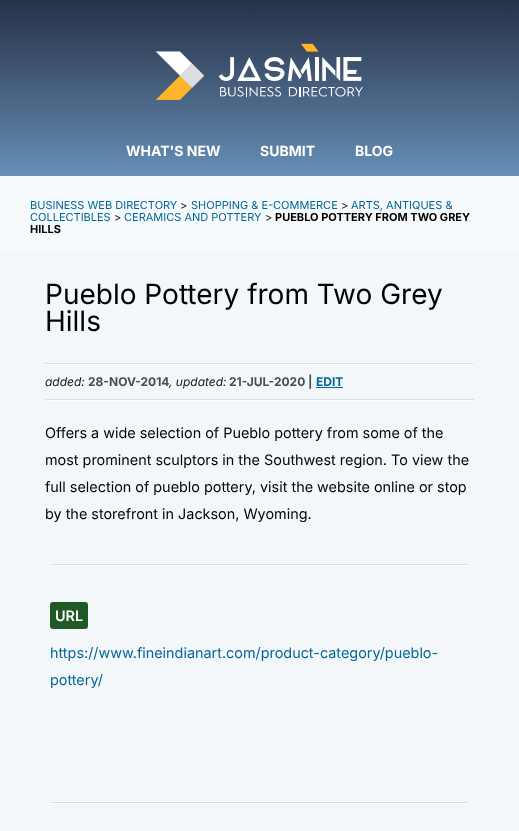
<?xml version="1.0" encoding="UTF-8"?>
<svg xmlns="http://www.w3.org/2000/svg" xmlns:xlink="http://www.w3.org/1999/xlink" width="519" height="831">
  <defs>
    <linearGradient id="g1" gradientUnits="userSpaceOnUse" x1="260" y1="0" x2="260" y2="176"><stop offset="0" stop-color="#263348" /><stop offset="0.25" stop-color="#364862" /><stop offset="0.5" stop-color="#465f7e" /><stop offset="0.75" stop-color="#56779a" /><stop offset="1" stop-color="#6690b7" /></linearGradient>
  </defs>
  <rect width="100%" height="100%" fill="#f4f7fa" />
  <rect width="519" height="176" fill="url(#g1)" />
  <image x="155" y="43" width="208" height="57" xlink:href="image1.png" />
  <rect y="176" width="519" height="78" fill="#f7fafc" />
  <rect y="254" width="519" height="1" fill="#f2f4f5" />
  <rect x="45" y="363" width="429" height="1" fill="#dcdee0" />
  <rect x="45" y="400" width="429" height="1" fill="#fcfdff" />
  <rect x="45" y="364" width="429" height="1" fill="#fcfdff" />
  <rect x="45" y="399" width="429" height="1" fill="#dcdee0" />
  <rect x="316" y="387" width="27" height="1" fill="#006699" />
  <rect x="50" y="564" width="419" height="1" fill="#dbdee0" />
  <rect x="50" y="565" width="419" height="1" fill="#fcfdfd" />
  <rect x="50" y="602" width="38" height="27" rx="3" fill="#205925" />
  <rect x="50" y="802" width="419" height="1" fill="#dbdee0" />
  <rect x="50" y="803" width="419" height="1" fill="#fcfdfd" />
  <text x="126" y="156" style="font-family: Inter; font-size: 14px; font-weight: bold; fill: #fefefe">WHAT'S NEW</text>
  <text x="260" y="156" style="font-family: Inter; font-size: 14px; font-weight: bold; fill: #fefefe">SUBMIT</text>
  <text x="355" y="156" style="font-family: Inter; font-size: 14px; font-weight: bold; fill: #fefefe">BLOG</text>
  <text x="30" y="209" style="font-family: Inter; font-size: 11px; fill: #006699">BUSINESS WEB DIRECTORY</text>
  <text x="180" y="209" style="font-family: Inter; font-size: 11px; fill: #000000">&gt;</text>
  <text x="191" y="209" style="font-family: Inter; font-size: 11px; fill: #006699">SHOPPING &amp; E-COMMERCE</text>
  <text x="341" y="209" style="font-family: Inter; font-size: 11px; fill: #000000">&gt;</text>
  <text x="351" y="209" style="font-family: Inter; font-size: 11px; fill: #006699">ARTS, ANTIQUES &amp;</text>
  <text x="30" y="221" style="font-family: Inter; font-size: 11px; fill: #006699">COLLECTIBLES</text>
  <text x="114" y="221" style="font-family: Inter; font-size: 11px; fill: #000000">&gt;</text>
  <text x="124" y="221" style="font-family: Inter; font-size: 11px; fill: #006699">CERAMICS AND POTTERY</text>
  <text x="265" y="221" style="font-family: Inter; font-size: 11px; fill: #000000">&gt;</text>
  <text x="275" y="221" style="font-family: Inter; font-size: 11px; font-weight: bold; fill: #000000">PUEBLO POTTERY FROM TWO GREY</text>
  <text x="30" y="233" style="font-family: Inter; font-size: 11px; font-weight: bold; fill: #000000">HILLS</text>
  <text x="45" y="304" style="font-family: Inter; font-size: 28px; fill: #000000">Pueblo Pottery from Two Grey</text>
  <text x="45" y="331" style="font-family: Inter; font-size: 28px; fill: #000000">Hills</text>
  <text x="45" y="386" style="font-family: Inter; font-size: 12px; font-style: italic; fill: #141515">added:</text>
  <text x="88" y="386" style="font-family: Inter; font-size: 12px; font-weight: bold; fill: #434e59">28-NOV-2014</text>
  <text x="169" y="386" style="font-family: Inter; font-size: 12px; font-style: italic; fill: #141515">, updated:</text>
  <text x="229" y="386" style="font-family: Inter; font-size: 12px; font-weight: bold; fill: #434e59">21-JUL-2020 |</text>
  <text x="316" y="386" style="font-family: Inter; font-size: 12px; font-weight: bold; fill: #006699">EDIT</text>
  <text x="45" y="438" style="font-family: Inter; font-size: 14.4px; fill: #000000">Offers a wide selection of Pueblo pottery from some of the</text>
  <text x="45" y="465" style="font-family: Inter; font-size: 14.4px; fill: #000000">most prominent sculptors in the Southwest region. To view the</text>
  <text x="45" y="492" style="font-family: Inter; font-size: 14.4px; fill: #000000">full selection of pueblo pottery, visit the website online or stop</text>
  <text x="45" y="519" style="font-family: Inter; font-size: 14.4px; fill: #000000">by the storefront in Jackson, Wyoming.</text>
  <text x="55" y="621" style="font-family: Inter; font-size: 14.4px; font-weight: 600; fill: #fefefe">URL</text>
  <text x="50" y="658" style="font-family: Inter; font-size: 14.4px; fill: #006699">https://www.fineindianart.com/product-category/pueblo-</text>
  <text x="50" y="685" style="font-family: Inter; font-size: 14.4px; fill: #006699">pottery/</text>
</svg>
